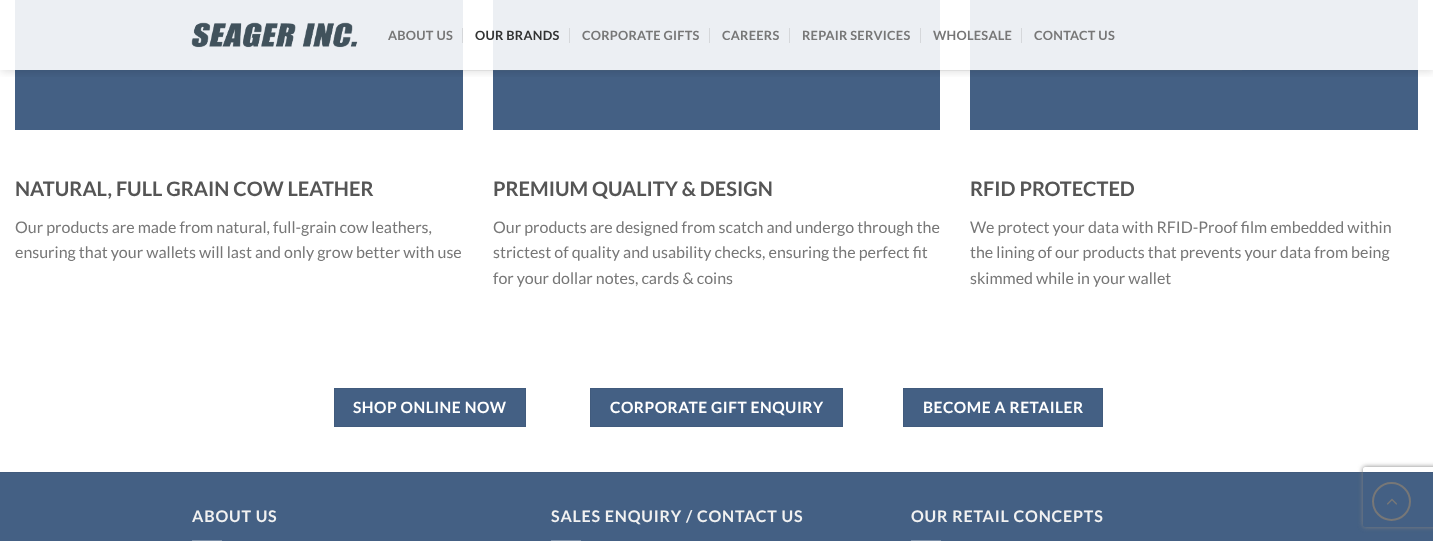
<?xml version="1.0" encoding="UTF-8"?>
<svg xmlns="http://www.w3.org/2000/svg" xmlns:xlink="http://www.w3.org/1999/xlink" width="1433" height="541">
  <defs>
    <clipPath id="clip1"><rect x="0" y="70" width="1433" height="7" /></clipPath>
    <clipPath id="clip2"><path d="M 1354 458 h 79 v 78 h -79 z m 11 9 h 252 c 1 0 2 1 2 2 v 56 c 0 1 -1 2 -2 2 h -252 c -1 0 -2 -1 -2 -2 v -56 c 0 -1 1 -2 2 -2 z" clip-rule="evenodd" /></clipPath>
  </defs>
  <rect width="100%" height="100%" fill="#ffffff" />
  <rect x="15" y="70" width="448" height="60" fill="#446084" />
  <rect x="15" width="448" height="70" fill="#eceff3" />
  <rect x="493" y="70" width="447" height="60" fill="#446084" />
  <rect x="493" width="447" height="70" fill="#eceff3" />
  <rect x="970" y="70" width="448" height="60" fill="#446084" />
  <rect x="970" width="448" height="70" fill="#eceff3" />
  <g clip-path="url(#clip1)">
    <rect x="1" y="1" width="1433" height="70" fill="#000000" fill-opacity="0.15" filter="blur(5px)" />
  </g>
  <image x="191" y="22" width="167" height="26" xlink:href="image1.png" />
  <rect x="462" y="28" width="1" height="15" fill="#d5d7da" />
  <rect x="569" y="28" width="1" height="15" fill="#d5d7da" />
  <rect x="709" y="28" width="1" height="15" fill="#d5d7da" />
  <rect x="789" y="28" width="1" height="15" fill="#d5d7da" />
  <rect x="920" y="28" width="1" height="15" fill="#d5d7da" />
  <rect x="1021" y="28" width="1" height="15" fill="#d5d7da" />
  <rect x="192" y="70" width="1050" height="1" fill="#777777" fill-opacity="0.1" />
  <rect x="334.5" y="388.5" width="191" height="38" fill="#446084" stroke="#415b7d" />
  <rect x="590.5" y="388.5" width="252" height="38" fill="#446084" stroke="#415b7d" />
  <rect x="903.5" y="388.5" width="199" height="38" fill="#446084" stroke="#415b7d" />
  <rect y="473" width="1433" height="68" fill="#446084" />
  <rect y="472" width="1433" height="1" fill="#415b7d" />
  <rect x="192" y="540" width="30" height="1" fill="#7c90a9" />
  <rect x="551" y="540" width="30" height="1" fill="#7c90a9" />
  <rect x="911" y="540" width="30" height="1" fill="#7c90a9" />
  <g clip-path="url(#clip2)">
    <rect x="1363" y="467" width="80" height="60" rx="2" fill="#808080" filter="blur(2.5px)" />
  </g>
  <circle cx="1391.5" cy="501.5" r="18.5" fill="none" stroke="#777777" stroke-width="2" />
  <image x="1387" y="498" width="10" height="7" xlink:href="image2.png" />
  <text x="388" y="40" style="font-family: Lato; font-size: 12.75px; font-weight: bold; letter-spacing: 0.25px; fill: #777777">ABOUT US</text>
  <text x="475" y="40" style="font-family: Lato; font-size: 12.75px; font-weight: bold; letter-spacing: 0.25px; fill: #323333">OUR BRANDS</text>
  <text x="582" y="40" style="font-family: Lato; font-size: 12.75px; font-weight: bold; letter-spacing: 0.25px; fill: #777777">CORPORATE GIFTS</text>
  <text x="722" y="40" style="font-family: Lato; font-size: 12.75px; font-weight: bold; letter-spacing: 0.25px; fill: #777777">CAREERS</text>
  <text x="802" y="40" style="font-family: Lato; font-size: 12.75px; font-weight: bold; letter-spacing: 0.25px; fill: #777777">REPAIR SERVICES</text>
  <text x="933" y="40" style="font-family: Lato; font-size: 12.75px; font-weight: bold; letter-spacing: 0.25px; fill: #777777">WHOLESALE</text>
  <text x="1034" y="40" style="font-family: Lato; font-size: 12.75px; font-weight: bold; letter-spacing: 0.25px; fill: #777777">CONTACT US</text>
  <text x="15" y="196" style="font-family: Lato; font-size: 20px; font-weight: bold; fill: #555555">NATURAL, FULL GRAIN COW LEATHER</text>
  <text x="15" y="233" style="font-family: Lato; font-size: 16px; fill: #777777">Our products are made from natural, full-grain cow leathers,</text>
  <text x="15" y="258" style="font-family: Lato; font-size: 16px; fill: #777777">ensuring that your wallets will last and only grow better with use</text>
  <text x="493" y="196" style="font-family: Lato; font-size: 20px; font-weight: bold; fill: #555555">PREMIUM QUALITY &amp; DESIGN</text>
  <text x="493" y="233" style="font-family: Lato; font-size: 16px; fill: #777777">Our products are designed from scatch and undergo through the</text>
  <text x="493" y="258" style="font-family: Lato; font-size: 16px; fill: #777777">strictest of quality and usability checks, ensuring the perfect fit</text>
  <text x="493" y="284" style="font-family: Lato; font-size: 16px; fill: #777777">for your dollar notes, cards &amp; coins</text>
  <text x="970" y="196" style="font-family: Lato; font-size: 20px; font-weight: bold; fill: #555555">RFID PROTECTED</text>
  <text x="970" y="233" style="font-family: Lato; font-size: 16px; fill: #777777">We protect your data with RFID-Proof film embedded within</text>
  <text x="970" y="258" style="font-family: Lato; font-size: 16px; fill: #777777">the lining of our products that prevents your data from being</text>
  <text x="970" y="284" style="font-family: Lato; font-size: 16px; fill: #777777">skimmed while in your wallet</text>
  <text x="353" y="413" style="font-family: Lato; font-size: 15.5px; font-weight: bold; letter-spacing: 0.5px; fill: #ffffff">SHOP ONLINE NOW</text>
  <text x="610" y="413" style="font-family: Lato; font-size: 15.5px; font-weight: bold; letter-spacing: 0.5px; fill: #ffffff">CORPORATE GIFT ENQUIRY</text>
  <text x="923" y="413" style="font-family: Lato; font-size: 15.5px; font-weight: bold; letter-spacing: 0.5px; fill: #ffffff">BECOME A RETAILER</text>
  <text x="192" y="522" style="font-family: Lato; font-size: 16px; font-weight: bold; letter-spacing: 0.8px; fill: #f1f1f1">ABOUT US</text>
  <text x="551" y="522" style="font-family: Lato; font-size: 16px; font-weight: bold; letter-spacing: 0.8px; fill: #f1f1f1">SALES ENQUIRY / CONTACT US</text>
  <text x="911" y="522" style="font-family: Lato; font-size: 16px; font-weight: bold; letter-spacing: 0.8px; fill: #f1f1f1">OUR RETAIL CONCEPTS</text>
</svg>
